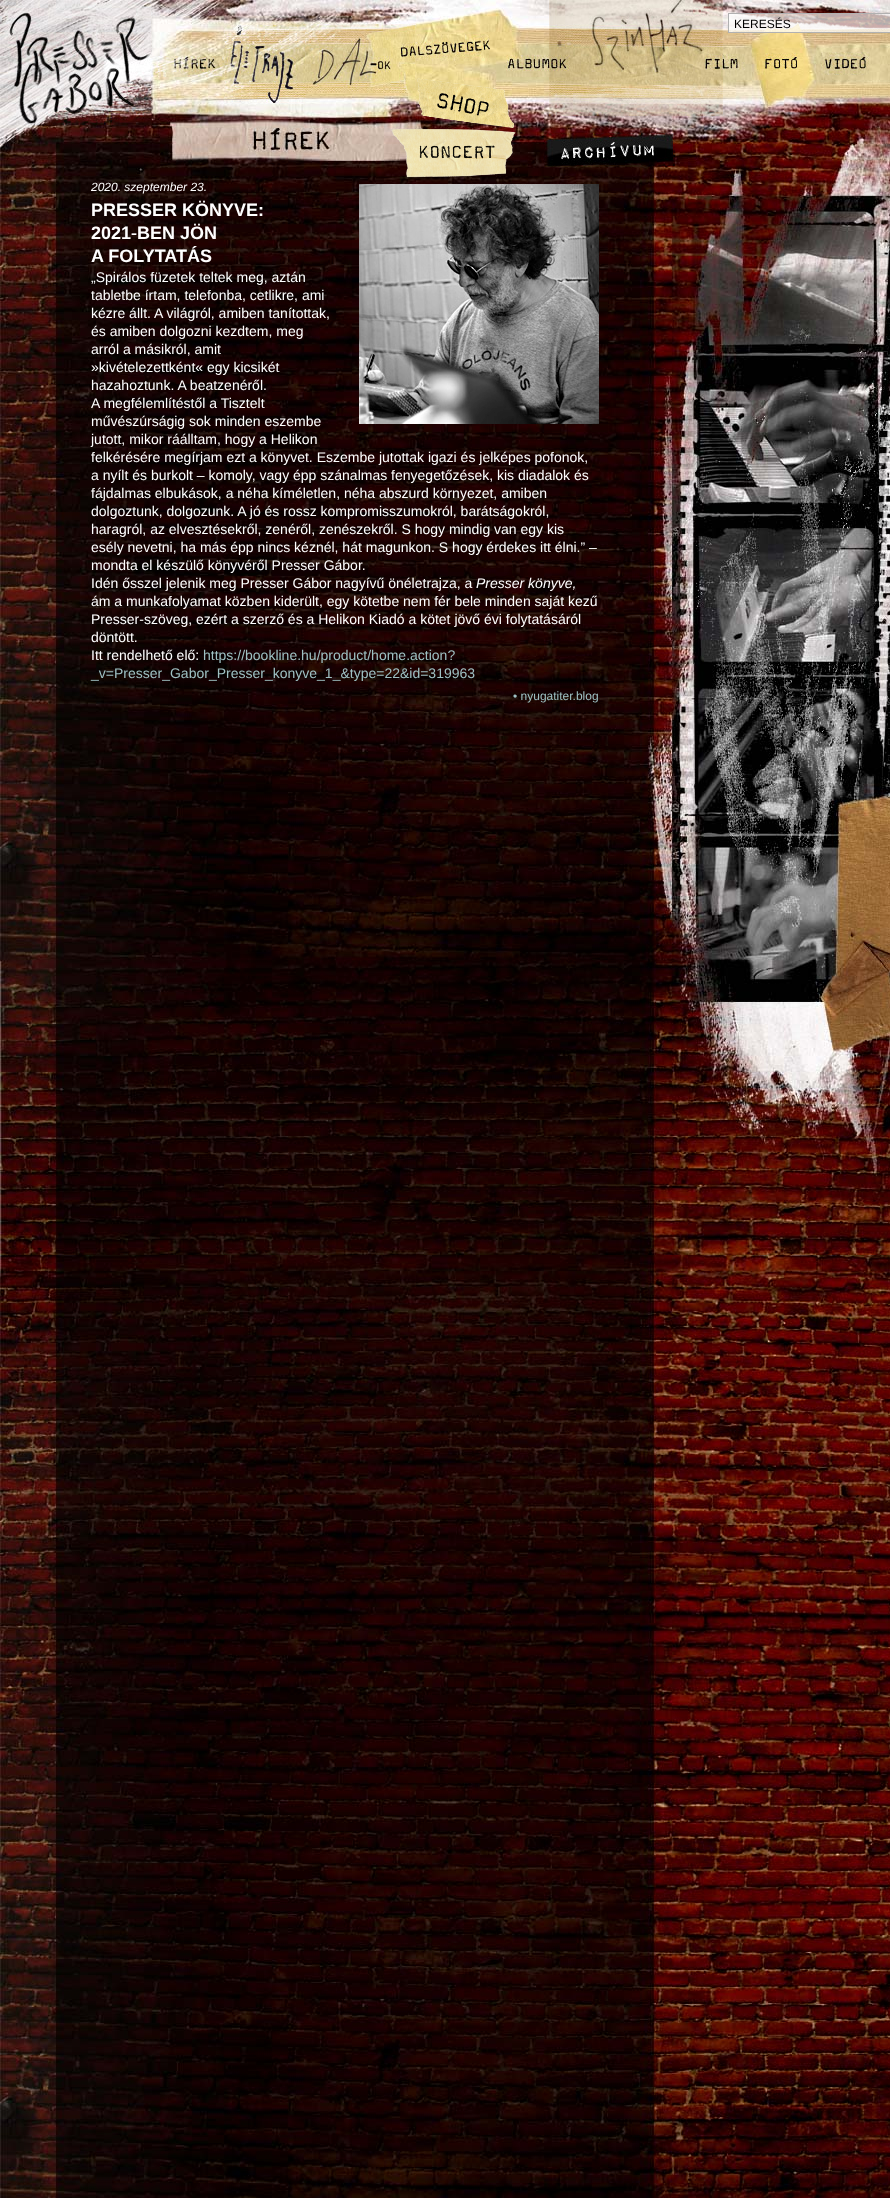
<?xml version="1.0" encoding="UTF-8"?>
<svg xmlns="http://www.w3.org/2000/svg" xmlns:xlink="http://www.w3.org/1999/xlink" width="890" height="2198">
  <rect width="100%" height="100%" fill="#ffffff" />
  <image x="0" y="1197" width="890" height="1001" xlink:href="image1.png" />
  <image x="0" y="0" width="890" height="1197" xlink:href="image16.png" />
  <image x="0" y="0" width="151" height="125" xlink:href="image2.png" />
  <image x="303" y="24" width="112" height="69" xlink:href="image4.png" />
  <image x="225" y="25" width="81" height="78" xlink:href="image3.png" />
  <image x="393" y="34" width="97" height="27" xlink:href="image5.png" />
  <image x="549" y="0" width="174" height="116" xlink:href="image6.png" />
  <image x="728" y="13" width="162" height="20" xlink:href="image7.png" />
  <image x="150" y="56" width="74" height="21" xlink:href="image8.png" />
  <image x="506" y="55" width="67" height="22" xlink:href="image9.png" />
  <image x="697" y="54" width="48" height="23" xlink:href="image10.png" />
  <image x="757" y="53" width="46" height="22" xlink:href="image11.png" />
  <image x="821" y="52" width="48" height="23" xlink:href="image12.png" />
  <image x="417" y="78" width="97" height="50" xlink:href="image13.png" />
  <image x="391" y="128" width="127" height="50" xlink:href="image14.png" />
  <image x="545" y="133" width="130" height="34" xlink:href="image15.png" />
  <image x="359" y="184" width="240" height="240" xlink:href="image17.png" />
  <text x="734" y="28" style="font-family: Liberation Sans; font-size: 12px; fill: #000000">KERESÉS</text>
  <text x="91" y="191" style="font-family: Liberation Sans; font-size: 12px; font-style: italic; fill: #ffffff">2020. szeptember 23.</text>
  <text x="91" y="216" style="font-family: Liberation Sans; font-size: 18px; font-weight: bold; fill: #ffffff">PRESSER KÖNYVE:</text>
  <text x="91" y="239" style="font-family: Liberation Sans; font-size: 18px; font-weight: bold; fill: #ffffff">2021‑BEN JÖN</text>
  <text x="91" y="262" style="font-family: Liberation Sans; font-size: 18px; font-weight: bold; fill: #ffffff">A FOLYTATÁS</text>
  <text x="91" y="282" style="font-family: Liberation Sans; font-size: 14px; fill: #ffffff">„Spirálos füzetek teltek meg, aztán</text>
  <text x="91" y="300" style="font-family: Liberation Sans; font-size: 14px; fill: #ffffff">tabletbe írtam, telefonba, cetlikre, ami</text>
  <text x="91" y="318" style="font-family: Liberation Sans; font-size: 14px; fill: #ffffff">kézre állt. A világról, amiben tanítottak,</text>
  <text x="91" y="336" style="font-family: Liberation Sans; font-size: 14px; fill: #ffffff">és amiben dolgozni kezdtem, meg</text>
  <text x="91" y="354" style="font-family: Liberation Sans; font-size: 14px; fill: #ffffff">arról a másikról, amit</text>
  <text x="91" y="372" style="font-family: Liberation Sans; font-size: 14px; fill: #ffffff">»kivételezettként« egy kicsikét</text>
  <text x="91" y="390" style="font-family: Liberation Sans; font-size: 14px; fill: #ffffff">hazahoztunk. A beatzenéről.</text>
  <text x="91" y="408" style="font-family: Liberation Sans; font-size: 14px; fill: #ffffff">A megfélemlítéstől a Tisztelt</text>
  <text x="91" y="426" style="font-family: Liberation Sans; font-size: 14px; fill: #ffffff">művészúrságig sok minden eszembe</text>
  <text x="91" y="444" style="font-family: Liberation Sans; font-size: 14px; fill: #ffffff">jutott, mikor ráálltam, hogy a Helikon</text>
  <text x="91" y="462" style="font-family: Liberation Sans; font-size: 14px; fill: #ffffff">felkérésére megírjam ezt a könyvet. Eszembe jutottak igazi és jelképes pofonok,</text>
  <text x="91" y="480" style="font-family: Liberation Sans; font-size: 14px; fill: #ffffff">a nyílt és burkolt – komoly, vagy épp szánalmas fenyegetőzések, kis diadalok és</text>
  <text x="91" y="498" style="font-family: Liberation Sans; font-size: 14px; fill: #ffffff">fájdalmas elbukások, a néha kíméletlen, néha abszurd környezet, amiben</text>
  <text x="91" y="516" style="font-family: Liberation Sans; font-size: 14px; fill: #ffffff">dolgoztunk, dolgozunk. A jó és rossz kompromisszumokról, barátságokról,</text>
  <text x="91" y="534" style="font-family: Liberation Sans; font-size: 14px; fill: #ffffff">haragról, az elvesztésekről, zenéről, zenészekről. S hogy mindig van egy kis</text>
  <text x="91" y="552" style="font-family: Liberation Sans; font-size: 14px; fill: #ffffff">esély nevetni, ha más épp nincs kéznél, hát magunkon. S hogy érdekes itt élni.” –</text>
  <text x="91" y="570" style="font-family: Liberation Sans; font-size: 14px; fill: #ffffff">mondta el készülő könyvéről Presser Gábor.</text>
  <text x="91" y="588" style="font-family: Liberation Sans; font-size: 14px; fill: #ffffff">Idén ősszel jelenik meg Presser Gábor nagyívű önéletrajza, a</text>
  <text x="476" y="588" style="font-family: Liberation Sans; font-size: 14px; font-style: italic; fill: #ffffff">Presser könyve,</text>
  <text x="91" y="606" style="font-family: Liberation Sans; font-size: 14px; fill: #ffffff">ám a munkafolyamat közben kiderült, egy kötetbe nem fér bele minden saját kezű</text>
  <text x="91" y="624" style="font-family: Liberation Sans; font-size: 14px; fill: #ffffff">Presser-szöveg, ezért a szerző és a Helikon Kiadó a kötet jövő évi folytatásáról</text>
  <text x="91" y="642" style="font-family: Liberation Sans; font-size: 14px; fill: #ffffff">döntött.</text>
  <text x="91" y="660" style="font-family: Liberation Sans; font-size: 14px; fill: #ffffff">Itt rendelhető elő:</text>
  <text x="203" y="660" style="font-family: Liberation Sans; font-size: 14px; fill: #9fc1c3">https://bookline.hu/product/home.action?</text>
  <text x="91" y="678" style="font-family: Liberation Sans; font-size: 14px; fill: #9fc1c3">_v=Presser_Gabor_Presser_konyve_1_&amp;type=22&amp;id=319963</text>
  <text x="513" y="700" style="font-family: Liberation Sans; font-size: 12px; fill: #9fc1c3">• nyugatiter.blog</text>
</svg>
